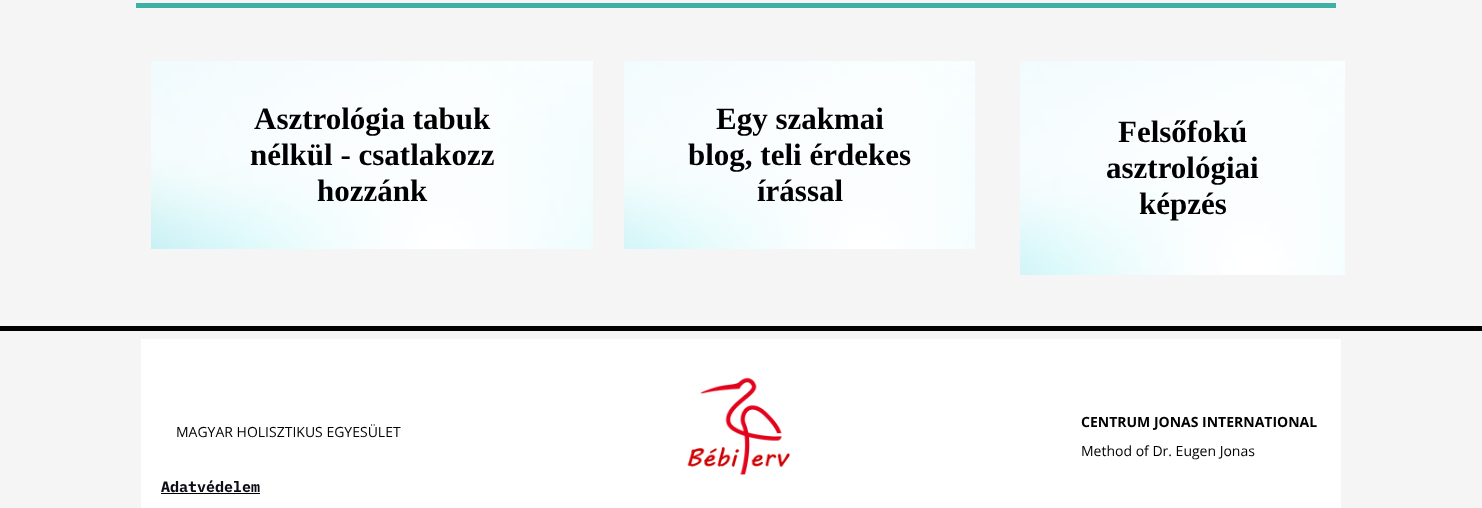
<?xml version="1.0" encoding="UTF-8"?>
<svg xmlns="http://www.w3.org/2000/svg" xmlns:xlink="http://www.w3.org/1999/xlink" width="1482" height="508">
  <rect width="100%" height="100%" fill="#f5f5f5" />
  <rect x="136" y="3" width="1200" height="5" fill="#3db0a3" />
  <image x="151" y="61" width="442" height="188" xlink:href="image1.png" />
  <image x="624" y="61" width="351" height="188" xlink:href="image2.png" />
  <image x="1020" y="61" width="325" height="214" xlink:href="image3.png" />
  <rect y="326" width="1482" height="5" fill="#000000" />
  <rect x="141" y="339" width="1200" height="169" fill="#ffffff" />
  <rect x="161" y="493" width="99" height="1" fill="#000000" />
  <image x="687" y="377" width="103" height="98" xlink:href="image4.png" />
  <text x="254" y="129" style="font-family: Liberation Serif; font-size: 31px; font-weight: bold; fill: #000000">Asztrológia tabuk</text>
  <text x="250" y="165" style="font-family: Liberation Serif; font-size: 31px; font-weight: bold; fill: #000000">nélkül - csatlakozz</text>
  <text x="317" y="201" style="font-family: Liberation Serif; font-size: 31px; font-weight: bold; fill: #000000">hozzánk</text>
  <text x="716" y="129" style="font-family: Liberation Serif; font-size: 31px; font-weight: bold; fill: #000000">Egy szakmai</text>
  <text x="688" y="165" style="font-family: Liberation Serif; font-size: 31px; font-weight: bold; fill: #000000">blog, teli érdekes</text>
  <text x="757" y="201" style="font-family: Liberation Serif; font-size: 31px; font-weight: bold; fill: #000000">írással</text>
  <text x="1118" y="142" style="font-family: Liberation Serif; font-size: 31px; font-weight: bold; fill: #000000">Felsőfokú</text>
  <text x="1106" y="178" style="font-family: Liberation Serif; font-size: 31px; font-weight: bold; fill: #000000">asztrológiai</text>
  <text x="1139" y="214" style="font-family: Liberation Serif; font-size: 31px; font-weight: bold; fill: #000000">képzés</text>
  <text x="176" y="437" style="font-family: Open Sans; font-size: 14px; fill: #000000">MAGYAR HOLISZTIKUS EGYESÜLET</text>
  <text x="161" y="492" style="font-family: IBM Plex Mono; font-size: 15px; font-weight: bold; fill: #0d0e17">Adatvédelem</text>
  <text x="1081" y="427" style="font-family: Open Sans; font-size: 14px; font-weight: bold; fill: #000000">CENTRUM JONAS INTERNATIONAL</text>
  <text x="1081" y="456" style="font-family: Open Sans; font-size: 14px; fill: #000000">Method of Dr. Eugen Jonas</text>
</svg>
